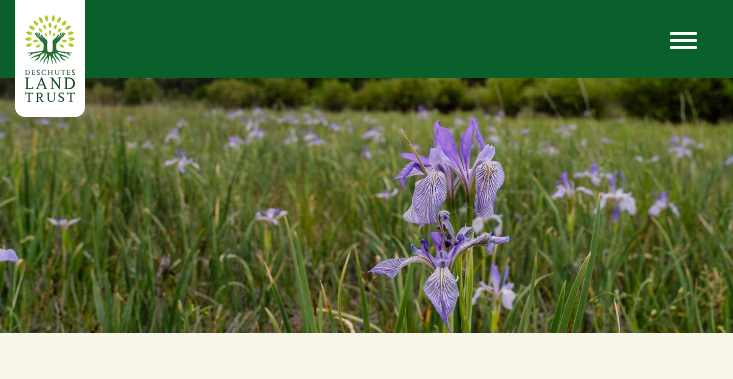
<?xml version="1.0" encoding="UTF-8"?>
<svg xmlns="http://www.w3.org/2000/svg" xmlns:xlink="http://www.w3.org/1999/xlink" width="733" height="379">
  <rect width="100%" height="100%" fill="#0a602b" />
  <image x="0" y="78" width="733" height="255" xlink:href="image2.png" />
  <path d="M 15 0 h 70 v 107 c 0 5.5 -4.5 10 -10 10 h -50 c -5.5 0 -10 -4.5 -10 -10 z" fill="#ffffff" />
  <image x="25" y="15" width="50" height="87" xlink:href="image1.png" />
  <rect x="670" y="32" width="27" height="3" rx="1" fill="#ffffff" />
  <rect x="670" y="39" width="27" height="3" rx="1" fill="#ffffff" />
  <rect x="670" y="46" width="27" height="3" rx="1" fill="#ffffff" />
  <rect y="333" width="733" height="46" fill="#f8f6eb" />
</svg>
